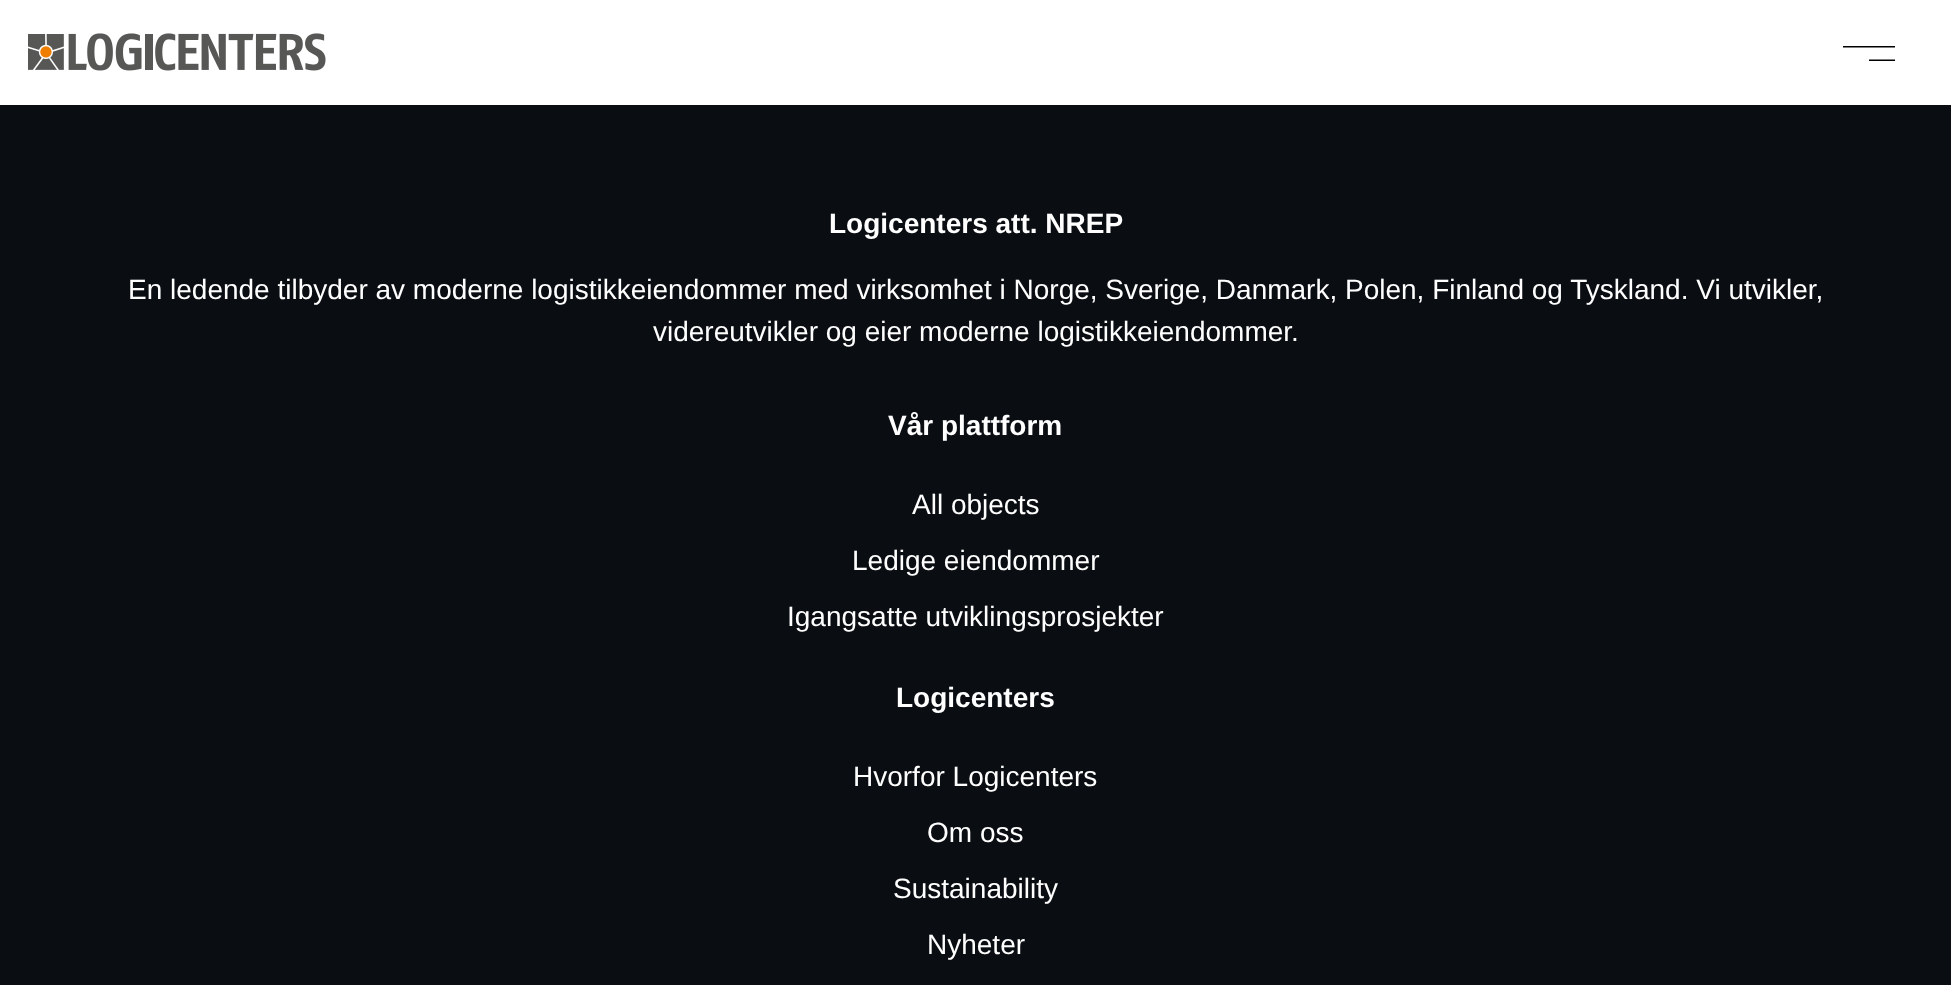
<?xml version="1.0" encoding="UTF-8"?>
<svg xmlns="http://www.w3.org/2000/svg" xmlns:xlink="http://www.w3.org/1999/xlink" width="1951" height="985">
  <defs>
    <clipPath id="clip1"><rect x="1843" y="46" width="52" height="15" /></clipPath>
  </defs>
  <rect width="100%" height="100%" fill="#0a0d12" />
  <rect width="1951" height="105" fill="#ffffff" />
  <image x="28" y="33" width="298" height="38" xlink:href="image1.png" />
  <g clip-path="url(#clip1)">
    <path d="M 1843 46.5 h 52 m 0 14 h -26" fill="none" stroke="#000000" stroke-width="1.8" />
  </g>
  <text x="829" y="233" style="font-family: Liberation Sans; font-size: 28px; font-weight: bold; fill: #ffffff">Logicenters att. NREP</text>
  <text x="128" y="299" style="font-family: Liberation Sans; font-size: 28px; fill: #ffffff">En ledende tilbyder av moderne logistikkeiendommer med virksomhet i Norge, Sverige, Danmark, Polen, Finland og Tyskland. Vi utvikler,</text>
  <text x="653" y="341" style="font-family: Liberation Sans; font-size: 28px; fill: #ffffff">videreutvikler og eier moderne logistikkeiendommer.</text>
  <text x="888" y="435" style="font-family: Liberation Sans; font-size: 28px; font-weight: bold; fill: #ffffff">Vår plattform</text>
  <text x="912" y="514" style="font-family: Liberation Sans; font-size: 28px; fill: #ffffff">All objects</text>
  <text x="852" y="570" style="font-family: Liberation Sans; font-size: 28px; fill: #ffffff">Ledige eiendommer</text>
  <text x="787" y="626" style="font-family: Liberation Sans; font-size: 28px; fill: #ffffff">Igangsatte utviklingsprosjekter</text>
  <text x="896" y="707" style="font-family: Liberation Sans; font-size: 28px; font-weight: bold; fill: #ffffff">Logicenters</text>
  <text x="853" y="786" style="font-family: Liberation Sans; font-size: 28px; fill: #ffffff">Hvorfor Logicenters</text>
  <text x="927" y="842" style="font-family: Liberation Sans; font-size: 28px; fill: #ffffff">Om oss</text>
  <text x="893" y="898" style="font-family: Liberation Sans; font-size: 28px; fill: #ffffff">Sustainability</text>
  <text x="927" y="954" style="font-family: Liberation Sans; font-size: 28px; fill: #ffffff">Nyheter</text>
</svg>
